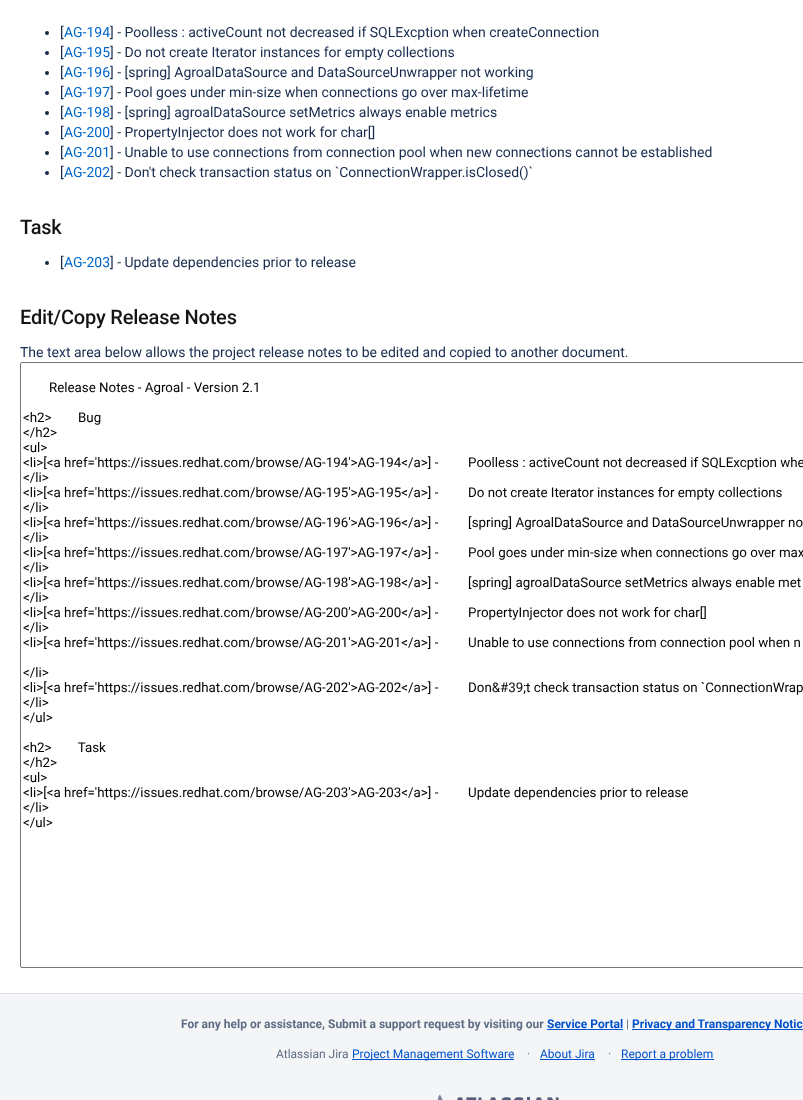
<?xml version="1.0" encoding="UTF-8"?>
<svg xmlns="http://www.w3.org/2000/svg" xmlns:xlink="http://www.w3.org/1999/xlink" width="803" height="1100">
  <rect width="100%" height="100%" fill="#f4f5f7" />
  <rect width="803" height="993" fill="#ffffff" />
  <rect y="993" width="803" height="1" fill="#dfe1e6" />
  <circle cx="47" cy="33" r="2" fill="#172b4d" />
  <circle cx="47" cy="53" r="2" fill="#172b4d" />
  <circle cx="47" cy="73" r="2" fill="#172b4d" />
  <circle cx="47" cy="93" r="2" fill="#172b4d" />
  <circle cx="47" cy="113" r="2" fill="#172b4d" />
  <circle cx="47" cy="133" r="2" fill="#172b4d" />
  <circle cx="47" cy="153" r="2" fill="#172b4d" />
  <circle cx="47" cy="173" r="2" fill="#172b4d" />
  <circle cx="47" cy="263" r="2" fill="#172b4d" />
  <rect x="20.5" y="362.5" width="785" height="605" rx="1.5" fill="none" stroke="#767676" />
  <rect x="547" y="1029" width="76" height="1" fill="#0052cc" />
  <rect x="632" y="1029" width="171" height="1" fill="#0052cc" />
  <rect x="352" y="1059" width="162" height="1" fill="#0052cc" />
  <rect x="540" y="1059" width="55" height="1" fill="#0052cc" />
  <rect x="621" y="1059" width="93" height="1" fill="#0052cc" />
  <image x="437" y="1095" width="122" height="5" xlink:href="image1.png" />
  <text x="60" y="37" style="font-family: Roboto; font-size: 14px; fill: #172b4d">[</text>
  <text x="64" y="37" style="font-family: Roboto; font-size: 14px; fill: #0066cc">AG-194</text>
  <text x="110" y="37" style="font-family: Roboto; font-size: 14px; fill: #172b4d">] - Poolless : activeCount not decreased if SQLExcption when createConnection</text>
  <text x="60" y="57" style="font-family: Roboto; font-size: 14px; fill: #172b4d">[</text>
  <text x="64" y="57" style="font-family: Roboto; font-size: 14px; fill: #0066cc">AG-195</text>
  <text x="110" y="57" style="font-family: Roboto; font-size: 14px; fill: #172b4d">] - Do not create Iterator instances for empty collections</text>
  <text x="60" y="77" style="font-family: Roboto; font-size: 14px; fill: #172b4d">[</text>
  <text x="64" y="77" style="font-family: Roboto; font-size: 14px; fill: #0066cc">AG-196</text>
  <text x="110" y="77" style="font-family: Roboto; font-size: 14px; fill: #172b4d">] - [spring] AgroalDataSource and DataSourceUnwrapper not working</text>
  <text x="60" y="97" style="font-family: Roboto; font-size: 14px; fill: #172b4d">[</text>
  <text x="64" y="97" style="font-family: Roboto; font-size: 14px; fill: #0066cc">AG-197</text>
  <text x="110" y="97" style="font-family: Roboto; font-size: 14px; fill: #172b4d">] - Pool goes under min-size when connections go over max-lifetime</text>
  <text x="60" y="117" style="font-family: Roboto; font-size: 14px; fill: #172b4d">[</text>
  <text x="64" y="117" style="font-family: Roboto; font-size: 14px; fill: #0066cc">AG-198</text>
  <text x="110" y="117" style="font-family: Roboto; font-size: 14px; fill: #172b4d">] - [spring] agroalDataSource setMetrics always enable metrics</text>
  <text x="60" y="137" style="font-family: Roboto; font-size: 14px; fill: #172b4d">[</text>
  <text x="64" y="137" style="font-family: Roboto; font-size: 14px; fill: #0066cc">AG-200</text>
  <text x="110" y="137" style="font-family: Roboto; font-size: 14px; fill: #172b4d">] - PropertyInjector does not work for char[]</text>
  <text x="60" y="157" style="font-family: Roboto; font-size: 14px; fill: #172b4d">[</text>
  <text x="64" y="157" style="font-family: Roboto; font-size: 14px; fill: #0066cc">AG-201</text>
  <text x="110" y="157" style="font-family: Roboto; font-size: 14px; fill: #172b4d">] - Unable to use connections from connection pool when new connections cannot be established</text>
  <text x="60" y="177" style="font-family: Roboto; font-size: 14px; fill: #172b4d">[</text>
  <text x="64" y="177" style="font-family: Roboto; font-size: 14px; fill: #0066cc">AG-202</text>
  <text x="110" y="177" style="font-family: Roboto; font-size: 14px; fill: #172b4d">] - Don't check transaction status on `ConnectionWrapper.isClosed()`</text>
  <text x="20" y="234" style="font-family: Roboto; font-size: 20px; font-weight: 500; letter-spacing: -0.2px; fill: #151515">Task</text>
  <text x="60" y="267" style="font-family: Roboto; font-size: 14px; fill: #172b4d">[</text>
  <text x="64" y="267" style="font-family: Roboto; font-size: 14px; fill: #0066cc">AG-203</text>
  <text x="110" y="267" style="font-family: Roboto; font-size: 14px; fill: #172b4d">] - Update dependencies prior to release</text>
  <text x="20" y="324" style="font-family: Roboto; font-size: 20px; font-weight: 500; letter-spacing: -0.2px; fill: #151515">Edit/Copy Release Notes</text>
  <text x="20" y="357" style="font-family: Roboto; font-size: 14px; fill: #172b4d">The text area below allows the project release notes to be edited and copied to another document.</text>
  <text x="49" y="392" style="font-family: Roboto; font-size: 13.33px; fill: #000000">Release Notes - Agroal - Version 2.1</text>
  <text x="23" y="422" style="font-family: Roboto; font-size: 13.33px; fill: #000000" xml:space="preserve">&lt;h2&gt;        Bug</text>
  <text x="23" y="437" style="font-family: Roboto; font-size: 13.33px; fill: #000000">&lt;/h2&gt;</text>
  <text x="23" y="452" style="font-family: Roboto; font-size: 13.33px; fill: #000000">&lt;ul&gt;</text>
  <text x="23" y="467" style="font-family: Roboto; font-size: 13.33px; fill: #000000" xml:space="preserve">&lt;li&gt;[&lt;a href='https://issues.redhat.com/browse/AG-194'&gt;AG-194&lt;/a&gt;] -         Poolless : activeCount not decreased if SQLExcption whe</text>
  <text x="23" y="482" style="font-family: Roboto; font-size: 13.33px; fill: #000000">&lt;/li&gt;</text>
  <text x="23" y="497" style="font-family: Roboto; font-size: 13.33px; fill: #000000" xml:space="preserve">&lt;li&gt;[&lt;a href='https://issues.redhat.com/browse/AG-195'&gt;AG-195&lt;/a&gt;] -         Do not create Iterator instances for empty collections</text>
  <text x="23" y="512" style="font-family: Roboto; font-size: 13.33px; fill: #000000">&lt;/li&gt;</text>
  <text x="23" y="527" style="font-family: Roboto; font-size: 13.33px; fill: #000000" xml:space="preserve">&lt;li&gt;[&lt;a href='https://issues.redhat.com/browse/AG-196'&gt;AG-196&lt;/a&gt;] -         [spring] AgroalDataSource and DataSourceUnwrapper no</text>
  <text x="23" y="542" style="font-family: Roboto; font-size: 13.33px; fill: #000000">&lt;/li&gt;</text>
  <text x="23" y="557" style="font-family: Roboto; font-size: 13.33px; fill: #000000" xml:space="preserve">&lt;li&gt;[&lt;a href='https://issues.redhat.com/browse/AG-197'&gt;AG-197&lt;/a&gt;] -         Pool goes under min-size when connections go over max</text>
  <text x="23" y="572" style="font-family: Roboto; font-size: 13.33px; fill: #000000">&lt;/li&gt;</text>
  <text x="23" y="587" style="font-family: Roboto; font-size: 13.33px; fill: #000000" xml:space="preserve">&lt;li&gt;[&lt;a href='https://issues.redhat.com/browse/AG-198'&gt;AG-198&lt;/a&gt;] -         [spring] agroalDataSource setMetrics always enable met</text>
  <text x="23" y="602" style="font-family: Roboto; font-size: 13.33px; fill: #000000">&lt;/li&gt;</text>
  <text x="23" y="617" style="font-family: Roboto; font-size: 13.33px; fill: #000000" xml:space="preserve">&lt;li&gt;[&lt;a href='https://issues.redhat.com/browse/AG-200'&gt;AG-200&lt;/a&gt;] -         PropertyInjector does not work for char[]</text>
  <text x="23" y="632" style="font-family: Roboto; font-size: 13.33px; fill: #000000">&lt;/li&gt;</text>
  <text x="23" y="647" style="font-family: Roboto; font-size: 13.33px; fill: #000000" xml:space="preserve">&lt;li&gt;[&lt;a href='https://issues.redhat.com/browse/AG-201'&gt;AG-201&lt;/a&gt;] -         Unable to use connections from connection pool when n</text>
  <text x="23" y="677" style="font-family: Roboto; font-size: 13.33px; fill: #000000">&lt;/li&gt;</text>
  <text x="23" y="692" style="font-family: Roboto; font-size: 13.33px; fill: #000000" xml:space="preserve">&lt;li&gt;[&lt;a href='https://issues.redhat.com/browse/AG-202'&gt;AG-202&lt;/a&gt;] -         Don&amp;#39;t check transaction status on `ConnectionWrap</text>
  <text x="23" y="707" style="font-family: Roboto; font-size: 13.33px; fill: #000000">&lt;/li&gt;</text>
  <text x="23" y="722" style="font-family: Roboto; font-size: 13.33px; fill: #000000">&lt;/ul&gt;</text>
  <text x="23" y="752" style="font-family: Roboto; font-size: 13.33px; fill: #000000" xml:space="preserve">&lt;h2&gt;        Task</text>
  <text x="23" y="767" style="font-family: Roboto; font-size: 13.33px; fill: #000000">&lt;/h2&gt;</text>
  <text x="23" y="782" style="font-family: Roboto; font-size: 13.33px; fill: #000000">&lt;ul&gt;</text>
  <text x="23" y="797" style="font-family: Roboto; font-size: 13.33px; fill: #000000" xml:space="preserve">&lt;li&gt;[&lt;a href='https://issues.redhat.com/browse/AG-203'&gt;AG-203&lt;/a&gt;] -         Update dependencies prior to release</text>
  <text x="23" y="812" style="font-family: Roboto; font-size: 13.33px; fill: #000000">&lt;/li&gt;</text>
  <text x="23" y="827" style="font-family: Roboto; font-size: 13.33px; fill: #000000">&lt;/ul&gt;</text>
  <text x="181" y="1028" style="font-family: Roboto; font-size: 12px; font-weight: bold; fill: #5e6c84">For any help or assistance, Submit a support request by visiting our</text>
  <text x="547" y="1028" style="font-family: Roboto; font-size: 12px; font-weight: bold; fill: #0052cc">Service Portal</text>
  <text x="626" y="1028" style="font-family: Roboto; font-size: 12px; fill: #5e6c84">|</text>
  <text x="632" y="1028" style="font-family: Roboto; font-size: 12px; font-weight: bold; fill: #0052cc">Privacy and Transparency Notic</text>
  <text x="276" y="1058" style="font-family: Roboto; font-size: 12px; fill: #5e6c84">Atlassian Jira</text>
  <text x="352" y="1058" style="font-family: Roboto; font-size: 12px; fill: #0052cc">Project Management Software</text>
  <text x="527" y="1058" style="font-family: Roboto; font-size: 12px; fill: #5e6c84">·</text>
  <text x="540" y="1058" style="font-family: Roboto; font-size: 12px; fill: #0052cc">About Jira</text>
  <text x="608" y="1058" style="font-family: Roboto; font-size: 12px; fill: #5e6c84">·</text>
  <text x="621" y="1058" style="font-family: Roboto; font-size: 12px; fill: #0052cc">Report a problem</text>
</svg>
